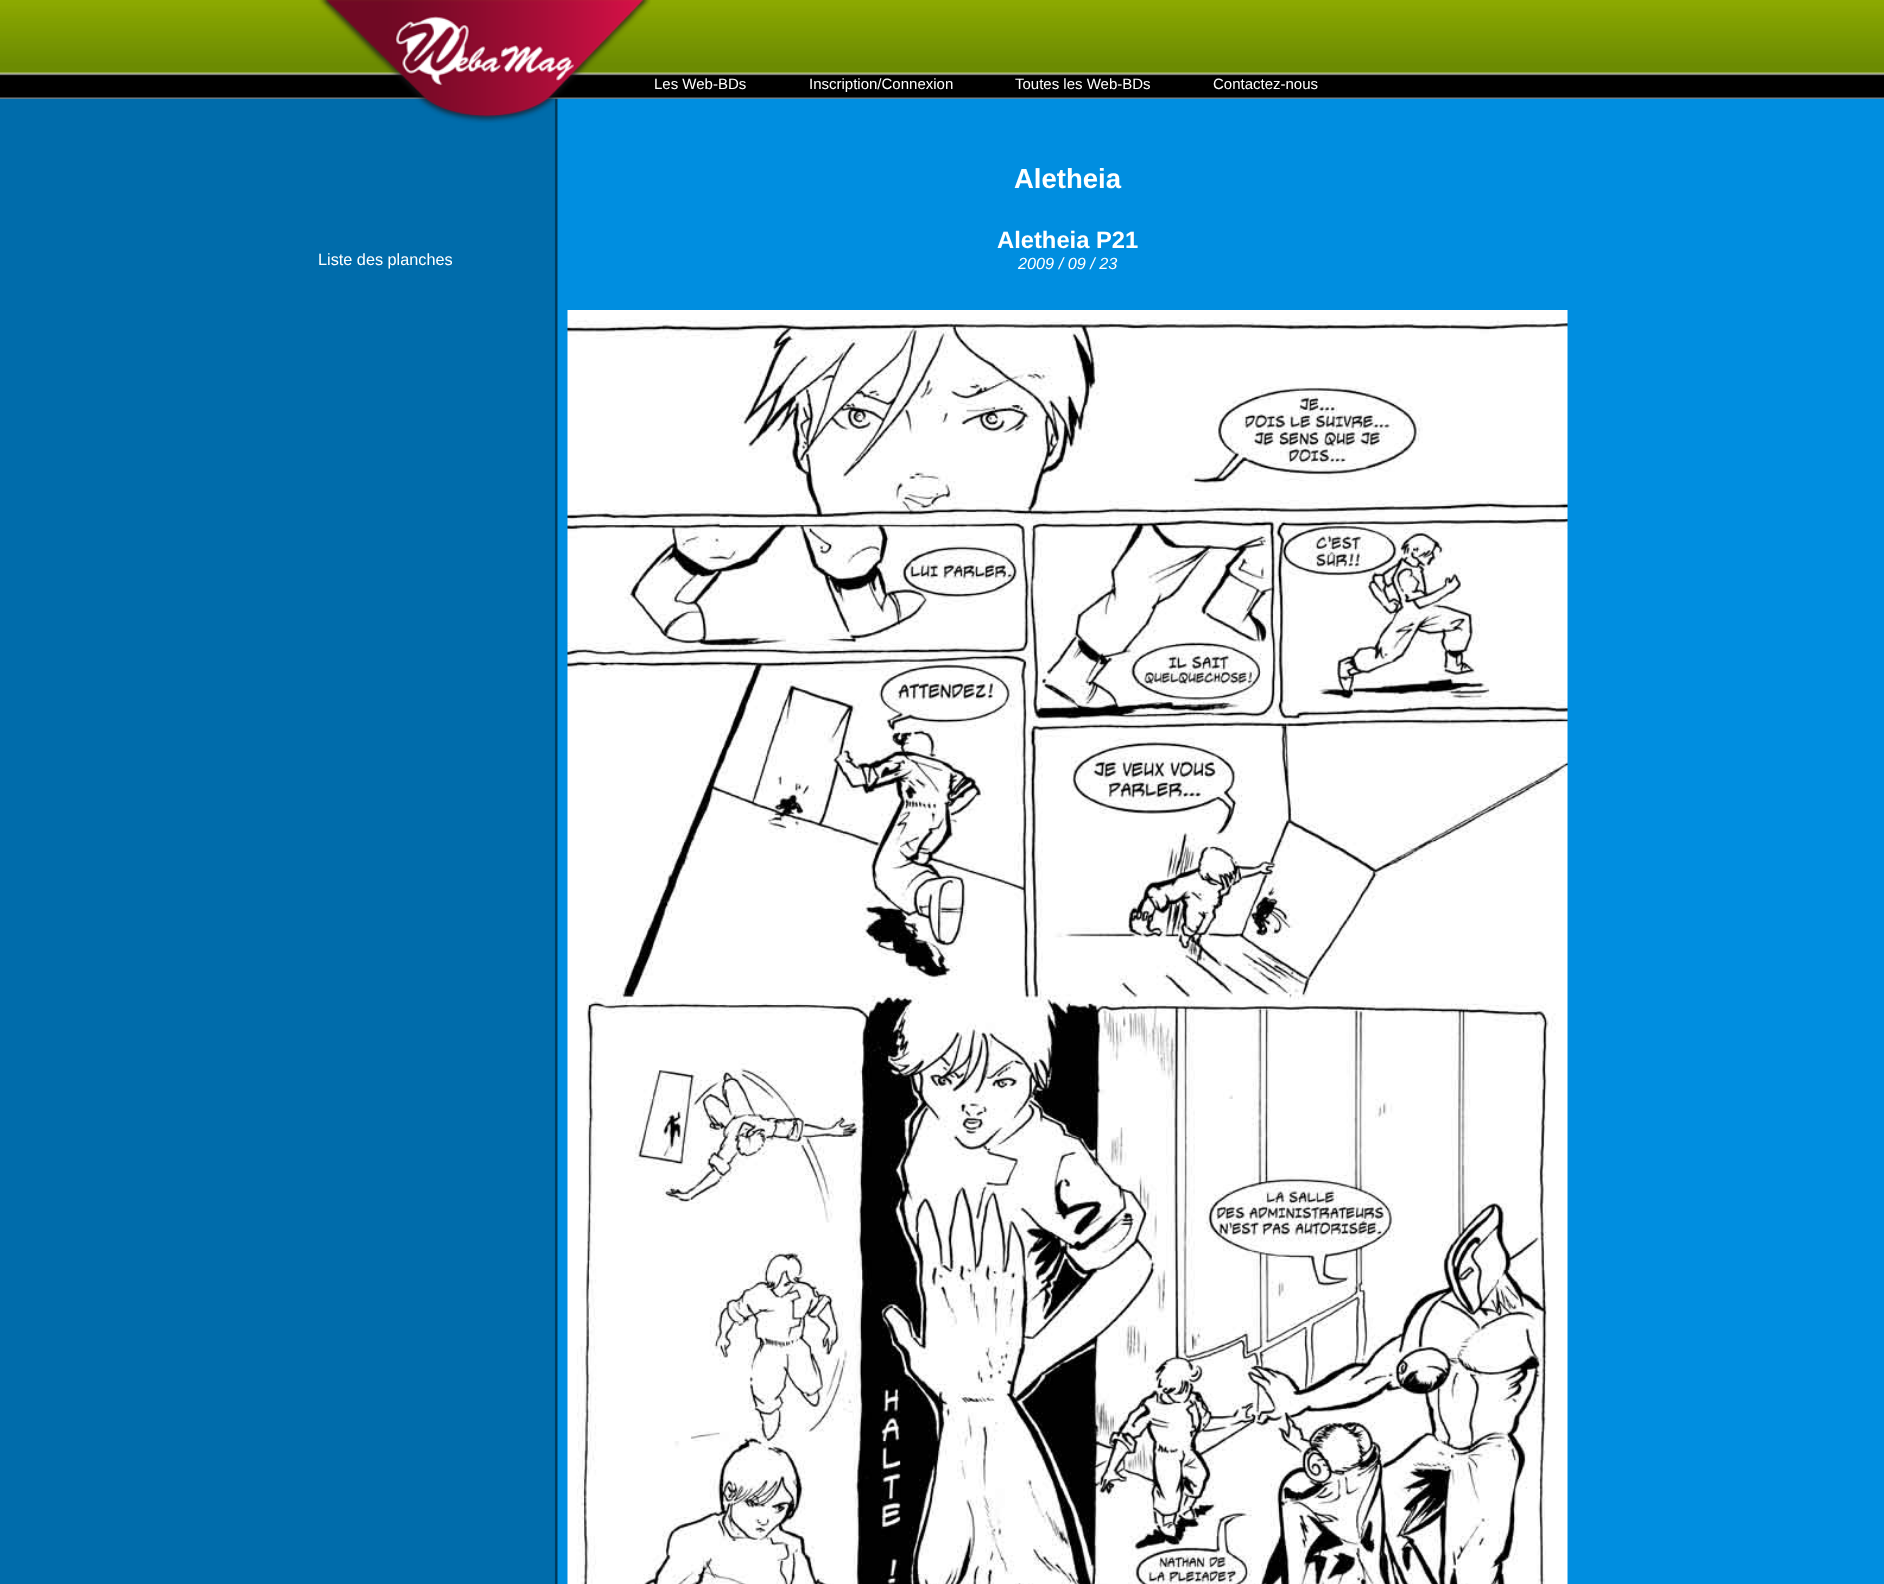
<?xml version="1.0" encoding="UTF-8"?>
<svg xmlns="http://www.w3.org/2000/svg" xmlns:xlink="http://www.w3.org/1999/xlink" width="1884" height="1584">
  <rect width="100%" height="100%" fill="#008ee0" />
  <image x="0" y="98" width="558" height="1486" xlink:href="image1.png" />
  <image x="0" y="0" width="1884" height="99" xlink:href="image2.png" />
  <image x="318" y="0" width="333" height="123" xlink:href="image3.png" />
  <image x="567" y="310" width="1001" height="1274" xlink:href="image4.png" />
  <text x="654" y="89" style="font-family: Liberation Sans; font-size: 15px; fill: #ffffff">Les Web-BDs</text>
  <text x="809" y="89" style="font-family: Liberation Sans; font-size: 15px; fill: #ffffff">Inscription/Connexion</text>
  <text x="1015" y="89" style="font-family: Liberation Sans; font-size: 15px; fill: #ffffff">Toutes les Web-BDs</text>
  <text x="1213" y="89" style="font-family: Liberation Sans; font-size: 15px; fill: #ffffff">Contactez-nous</text>
  <text x="318" y="265" style="font-family: Liberation Sans; font-size: 16.25px; fill: #ffffff">Liste des planches</text>
  <text x="1014" y="188" style="font-family: Liberation Sans; font-size: 27.5px; font-weight: bold; fill: #ffffff">Aletheia</text>
  <text x="997" y="248" style="font-family: Liberation Sans; font-size: 23.75px; font-weight: bold; fill: #ffffff">Aletheia P21</text>
  <text x="1018" y="269" style="font-family: Liberation Sans; font-size: 16.25px; font-style: italic; fill: #ffffff">2009 / 09 / 23</text>
</svg>
